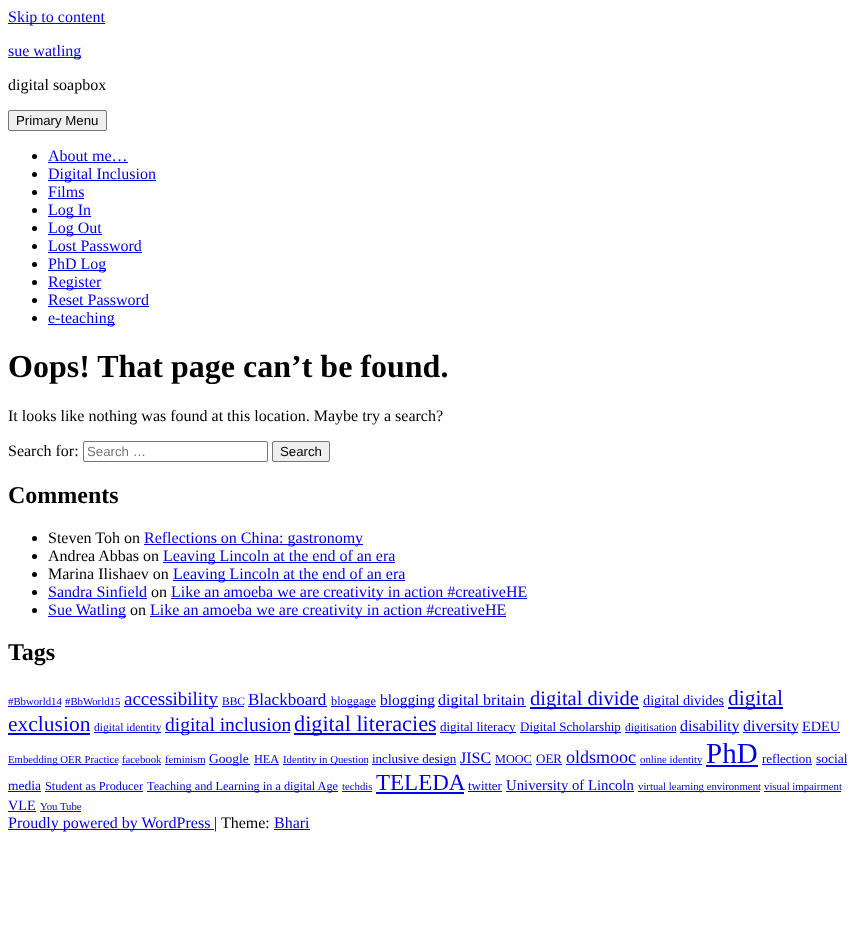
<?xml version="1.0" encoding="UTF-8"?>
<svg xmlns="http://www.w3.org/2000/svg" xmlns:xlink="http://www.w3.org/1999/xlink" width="858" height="927">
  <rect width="100%" height="100%" fill="#ffffff" />
  <rect x="8" y="23" width="97" height="1" fill="#0000ee" />
  <rect x="8" y="57" width="73" height="1" fill="#0000ee" />
  <rect x="8.5" y="110.5" width="98" height="20" rx="1.5" fill="#efefef" stroke="#767676" />
  <circle cx="34.5" cy="156.5" r="2.5" fill="#000000" />
  <rect x="48" y="162" width="80" height="1" fill="#0000ee" />
  <circle cx="34.5" cy="174.5" r="2.5" fill="#000000" />
  <rect x="48" y="180" width="108" height="1" fill="#0000ee" />
  <circle cx="34.5" cy="192.5" r="2.5" fill="#000000" />
  <rect x="48" y="198" width="36" height="1" fill="#0000ee" />
  <circle cx="34.5" cy="210.5" r="2.5" fill="#000000" />
  <rect x="48" y="216" width="43" height="1" fill="#0000ee" />
  <circle cx="34.5" cy="228.5" r="2.5" fill="#000000" />
  <rect x="48" y="234" width="54" height="1" fill="#0000ee" />
  <circle cx="34.5" cy="246.5" r="2.5" fill="#000000" />
  <rect x="48" y="252" width="94" height="1" fill="#0000ee" />
  <circle cx="34.5" cy="264.5" r="2.5" fill="#000000" />
  <rect x="48" y="270" width="58" height="1" fill="#0000ee" />
  <circle cx="34.5" cy="282.5" r="2.5" fill="#000000" />
  <rect x="48" y="288" width="53" height="1" fill="#0000ee" />
  <circle cx="34.5" cy="300.5" r="2.5" fill="#000000" />
  <rect x="48" y="306" width="101" height="1" fill="#0000ee" />
  <circle cx="34.5" cy="318.5" r="2.5" fill="#000000" />
  <rect x="48" y="324" width="67" height="1" fill="#0000ee" />
  <rect x="83.5" y="441.5" width="184" height="20" rx="1.5" fill="none" stroke="#767676" />
  <rect x="272.5" y="441.5" width="57" height="20" rx="1.5" fill="#efefef" stroke="#767676" />
  <circle cx="34.5" cy="538.5" r="2.5" fill="#000000" />
  <rect x="144" y="544" width="219" height="1" fill="#0000ee" />
  <circle cx="34.5" cy="556.5" r="2.5" fill="#000000" />
  <rect x="163" y="562" width="232" height="1" fill="#0000ee" />
  <circle cx="34.5" cy="574.5" r="2.5" fill="#000000" />
  <rect x="173" y="580" width="232" height="1" fill="#0000ee" />
  <circle cx="34.5" cy="592.5" r="2.5" fill="#000000" />
  <rect x="48" y="598" width="99" height="1" fill="#0000ee" />
  <rect x="171" y="598" width="356" height="1" fill="#0000ee" />
  <circle cx="34.5" cy="610.5" r="2.5" fill="#000000" />
  <rect x="48" y="616" width="78" height="1" fill="#0000ee" />
  <rect x="150" y="616" width="356" height="1" fill="#0000ee" />
  <rect x="8" y="706" width="53" height="1" fill="#0000ee" />
  <rect x="65" y="706" width="55" height="1" fill="#0000ee" />
  <rect x="124" y="706" width="94" height="1" fill="#0000ee" />
  <rect x="222" y="706" width="22" height="1" fill="#0000ee" />
  <rect x="248" y="706" width="79" height="1" fill="#0000ee" />
  <rect x="331" y="706" width="45" height="1" fill="#0000ee" />
  <rect x="380" y="706" width="54" height="1" fill="#0000ee" />
  <rect x="438" y="706" width="88" height="1" fill="#0000ee" />
  <rect x="530" y="707" width="109" height="2" fill="#0000ee" />
  <rect x="643" y="706" width="81" height="1" fill="#0000ee" />
  <rect x="728" y="707" width="55" height="2" fill="#0000ee" />
  <rect x="8" y="733" width="82" height="2" fill="#0000ee" />
  <rect x="94" y="732" width="67" height="1" fill="#0000ee" />
  <rect x="165" y="732" width="125" height="1" fill="#0000ee" />
  <rect x="294" y="733" width="142" height="2" fill="#0000ee" />
  <rect x="440" y="732" width="76" height="1" fill="#0000ee" />
  <rect x="520" y="732" width="101" height="1" fill="#0000ee" />
  <rect x="625" y="732" width="51" height="1" fill="#0000ee" />
  <rect x="680" y="732" width="59" height="1" fill="#0000ee" />
  <rect x="743" y="732" width="55" height="1" fill="#0000ee" />
  <rect x="802" y="732" width="38" height="1" fill="#0000ee" />
  <rect x="8" y="764" width="110" height="1" fill="#0000ee" />
  <rect x="122" y="764" width="39" height="1" fill="#0000ee" />
  <rect x="165" y="764" width="40" height="1" fill="#0000ee" />
  <rect x="209" y="764" width="41" height="1" fill="#0000ee" />
  <rect x="254" y="764" width="25" height="1" fill="#0000ee" />
  <rect x="283" y="764" width="85" height="1" fill="#0000ee" />
  <rect x="372" y="764" width="84" height="1" fill="#0000ee" />
  <rect x="460" y="764" width="31" height="1" fill="#0000ee" />
  <rect x="495" y="764" width="37" height="1" fill="#0000ee" />
  <rect x="536" y="764" width="26" height="1" fill="#0000ee" />
  <rect x="566" y="764" width="70" height="1" fill="#0000ee" />
  <rect x="640" y="764" width="62" height="1" fill="#0000ee" />
  <rect x="706" y="765" width="52" height="2" fill="#0000ee" />
  <rect x="762" y="764" width="50" height="1" fill="#0000ee" />
  <rect x="816" y="764" width="31" height="1" fill="#0000ee" />
  <rect x="8" y="791" width="33" height="1" fill="#0000ee" />
  <rect x="45" y="791" width="98" height="1" fill="#0000ee" />
  <rect x="147" y="791" width="191" height="1" fill="#0000ee" />
  <rect x="342" y="791" width="30" height="1" fill="#0000ee" />
  <rect x="376" y="792" width="88" height="2" fill="#0000ee" />
  <rect x="468" y="791" width="34" height="1" fill="#0000ee" />
  <rect x="506" y="791" width="128" height="1" fill="#0000ee" />
  <rect x="638" y="791" width="122" height="1" fill="#0000ee" />
  <rect x="764" y="791" width="77" height="1" fill="#0000ee" />
  <rect x="8" y="811" width="28" height="1" fill="#0000ee" />
  <rect x="40" y="811" width="41" height="1" fill="#0000ee" />
  <rect x="8" y="829" width="206" height="1" fill="#0000ee" />
  <rect x="274" y="829" width="36" height="1" fill="#0000ee" />
  <text x="8" y="22" style="font-family: Liberation Serif; font-size: 16px; fill: #0000ee">Skip to content</text>
  <text x="8" y="56" style="font-family: Liberation Serif; font-size: 16px; fill: #0000ee">sue watling</text>
  <text x="8" y="90" style="font-family: Liberation Serif; font-size: 16px; fill: #000000">digital soapbox</text>
  <text x="16" y="125" style="font-family: Liberation Sans; font-size: 13.25px; fill: #000000">Primary Menu</text>
  <text x="48" y="161" style="font-family: Liberation Serif; font-size: 16px; fill: #0000ee">About me…</text>
  <text x="48" y="179" style="font-family: Liberation Serif; font-size: 16px; fill: #0000ee">Digital Inclusion</text>
  <text x="48" y="197" style="font-family: Liberation Serif; font-size: 16px; fill: #0000ee">Films</text>
  <text x="48" y="215" style="font-family: Liberation Serif; font-size: 16px; fill: #0000ee">Log In</text>
  <text x="48" y="233" style="font-family: Liberation Serif; font-size: 16px; fill: #0000ee">Log Out</text>
  <text x="48" y="251" style="font-family: Liberation Serif; font-size: 16px; fill: #0000ee">Lost Password</text>
  <text x="48" y="269" style="font-family: Liberation Serif; font-size: 16px; fill: #0000ee">PhD Log</text>
  <text x="48" y="287" style="font-family: Liberation Serif; font-size: 16px; fill: #0000ee">Register</text>
  <text x="48" y="305" style="font-family: Liberation Serif; font-size: 16px; fill: #0000ee">Reset Password</text>
  <text x="48" y="323" style="font-family: Liberation Serif; font-size: 16px; fill: #0000ee">e-teaching</text>
  <text x="8" y="377" style="font-family: Liberation Serif; font-size: 32px; font-weight: bold; fill: #000000">Oops! That page can’t be found.</text>
  <text x="8" y="421" style="font-family: Liberation Serif; font-size: 16px; fill: #000000">It looks like nothing was found at this location. Maybe try a search?</text>
  <text x="8" y="456" style="font-family: Liberation Serif; font-size: 16px; fill: #000000">Search for:</text>
  <text x="87" y="456" style="font-family: Liberation Sans; font-size: 13.25px; fill: #757575">Search …</text>
  <text x="280" y="456" style="font-family: Liberation Sans; font-size: 13.25px; fill: #000000">Search</text>
  <text x="8" y="503" style="font-family: Liberation Serif; font-size: 24px; font-weight: bold; fill: #000000">Comments</text>
  <text x="48" y="543" style="font-family: Liberation Serif; font-size: 16px; fill: #000000">Steven Toh on</text>
  <text x="144" y="543" style="font-family: Liberation Serif; font-size: 16px; fill: #0000ee">Reflections on China: gastronomy</text>
  <text x="48" y="561" style="font-family: Liberation Serif; font-size: 16px; fill: #000000">Andrea Abbas on</text>
  <text x="163" y="561" style="font-family: Liberation Serif; font-size: 16px; fill: #0000ee">Leaving Lincoln at the end of an era</text>
  <text x="48" y="579" style="font-family: Liberation Serif; font-size: 16px; fill: #000000">Marina Ilishaev on</text>
  <text x="173" y="579" style="font-family: Liberation Serif; font-size: 16px; fill: #0000ee">Leaving Lincoln at the end of an era</text>
  <text x="48" y="597" style="font-family: Liberation Serif; font-size: 16px; fill: #0000ee">Sandra Sinfield</text>
  <text x="151" y="597" style="font-family: Liberation Serif; font-size: 16px; fill: #000000">on</text>
  <text x="171" y="597" style="font-family: Liberation Serif; font-size: 16px; fill: #0000ee">Like an amoeba we are creativity in action #creativeHE</text>
  <text x="48" y="615" style="font-family: Liberation Serif; font-size: 16px; fill: #0000ee">Sue Watling</text>
  <text x="130" y="615" style="font-family: Liberation Serif; font-size: 16px; fill: #000000">on</text>
  <text x="150" y="615" style="font-family: Liberation Serif; font-size: 16px; fill: #0000ee">Like an amoeba we are creativity in action #creativeHE</text>
  <text x="8" y="660" style="font-family: Liberation Serif; font-size: 24px; font-weight: bold; fill: #000000">Tags</text>
  <text x="8" y="705" style="font-family: Liberation Serif; font-size: 10.75px; fill: #0000ee">#Bbworld14</text>
  <text x="65" y="705" style="font-family: Liberation Serif; font-size: 10.75px; fill: #0000ee">#BbWorld15</text>
  <text x="124" y="705" style="font-family: Liberation Serif; font-size: 19px; fill: #0000ee">accessibility</text>
  <text x="222" y="705" style="font-family: Liberation Serif; font-size: 11.5px; fill: #0000ee">BBC</text>
  <text x="248" y="705" style="font-family: Liberation Serif; font-size: 17px; fill: #0000ee">Blackboard</text>
  <text x="331" y="705" style="font-family: Liberation Serif; font-size: 12.25px; fill: #0000ee">bloggage</text>
  <text x="380" y="705" style="font-family: Liberation Serif; font-size: 15.5px; fill: #0000ee">blogging</text>
  <text x="438" y="705" style="font-family: Liberation Serif; font-size: 16px; fill: #0000ee">digital britain</text>
  <text x="530" y="705" style="font-family: Liberation Serif; font-size: 20.5px; fill: #0000ee">digital divide</text>
  <text x="643" y="705" style="font-family: Liberation Serif; font-size: 14.25px; fill: #0000ee">digital divides</text>
  <text x="728" y="705" style="font-family: Liberation Serif; font-size: 21.5px; fill: #0000ee">digital</text>
  <text x="8" y="731" style="font-family: Liberation Serif; font-size: 21.5px; fill: #0000ee">exclusion</text>
  <text x="94" y="731" style="font-family: Liberation Serif; font-size: 11.5px; fill: #0000ee">digital identity</text>
  <text x="165" y="731" style="font-family: Liberation Serif; font-size: 19.5px; fill: #0000ee">digital inclusion</text>
  <text x="294" y="731" style="font-family: Liberation Serif; font-size: 22.25px; fill: #0000ee">digital literacies</text>
  <text x="440" y="731" style="font-family: Liberation Serif; font-size: 13px; fill: #0000ee">digital literacy</text>
  <text x="520" y="731" style="font-family: Liberation Serif; font-size: 13px; fill: #0000ee">Digital Scholarship</text>
  <text x="625" y="731" style="font-family: Liberation Serif; font-size: 11.5px; fill: #0000ee">digitisation</text>
  <text x="680" y="731" style="font-family: Liberation Serif; font-size: 16px; fill: #0000ee">disability</text>
  <text x="743" y="731" style="font-family: Liberation Serif; font-size: 16px; fill: #0000ee">diversity</text>
  <text x="802" y="731" style="font-family: Liberation Serif; font-size: 14.25px; fill: #0000ee">EDEU</text>
  <text x="8" y="763" style="font-family: Liberation Serif; font-size: 10.75px; fill: #0000ee">Embedding OER Practice</text>
  <text x="122" y="763" style="font-family: Liberation Serif; font-size: 10.75px; fill: #0000ee">facebook</text>
  <text x="165" y="763" style="font-family: Liberation Serif; font-size: 10.75px; fill: #0000ee">feminism</text>
  <text x="209" y="763" style="font-family: Liberation Serif; font-size: 13.5px; fill: #0000ee">Google</text>
  <text x="254" y="763" style="font-family: Liberation Serif; font-size: 12.25px; fill: #0000ee">HEA</text>
  <text x="283" y="763" style="font-family: Liberation Serif; font-size: 10.75px; fill: #0000ee">Identity in Question</text>
  <text x="372" y="763" style="font-family: Liberation Serif; font-size: 13px; fill: #0000ee">inclusive design</text>
  <text x="460" y="763" style="font-family: Liberation Serif; font-size: 16px; fill: #0000ee">JISC</text>
  <text x="495" y="763" style="font-family: Liberation Serif; font-size: 12.25px; fill: #0000ee">MOOC</text>
  <text x="536" y="763" style="font-family: Liberation Serif; font-size: 13px; fill: #0000ee">OER</text>
  <text x="566" y="763" style="font-family: Liberation Serif; font-size: 18px; fill: #0000ee">oldsmooc</text>
  <text x="640" y="763" style="font-family: Liberation Serif; font-size: 10.75px; fill: #0000ee">online identity</text>
  <text x="706" y="763" style="font-family: Liberation Serif; font-size: 29px; fill: #0000ee">PhD</text>
  <text x="762" y="763" style="font-family: Liberation Serif; font-size: 13px; fill: #0000ee">reflection</text>
  <text x="816" y="763" style="font-family: Liberation Serif; font-size: 13.5px; fill: #0000ee">social</text>
  <text x="8" y="790" style="font-family: Liberation Serif; font-size: 13.5px; fill: #0000ee">media</text>
  <text x="45" y="790" style="font-family: Liberation Serif; font-size: 12.25px; fill: #0000ee">Student as Producer</text>
  <text x="147" y="790" style="font-family: Liberation Serif; font-size: 12.25px; fill: #0000ee">Teaching and Learning in a digital Age</text>
  <text x="342" y="790" style="font-family: Liberation Serif; font-size: 10.75px; fill: #0000ee">techdis</text>
  <text x="376" y="790" style="font-family: Liberation Serif; font-size: 23px; fill: #0000ee">TELEDA</text>
  <text x="468" y="790" style="font-family: Liberation Serif; font-size: 13px; fill: #0000ee">twitter</text>
  <text x="506" y="790" style="font-family: Liberation Serif; font-size: 14.75px; fill: #0000ee">University of Lincoln</text>
  <text x="638" y="790" style="font-family: Liberation Serif; font-size: 10.75px; fill: #0000ee">virtual learning environment</text>
  <text x="764" y="790" style="font-family: Liberation Serif; font-size: 10.75px; fill: #0000ee">visual impairment</text>
  <text x="8" y="810" style="font-family: Liberation Serif; font-size: 14.25px; fill: #0000ee">VLE</text>
  <text x="40" y="810" style="font-family: Liberation Serif; font-size: 10.75px; fill: #0000ee">You Tube</text>
  <text x="8" y="828" style="font-family: Liberation Serif; font-size: 16px; fill: #0000ee">Proudly powered by WordPress</text>
  <text x="214" y="828" style="font-family: Liberation Serif; font-size: 16px; fill: #000000">| Theme:</text>
  <text x="274" y="828" style="font-family: Liberation Serif; font-size: 16px; fill: #0000ee">Bhari</text>
</svg>
